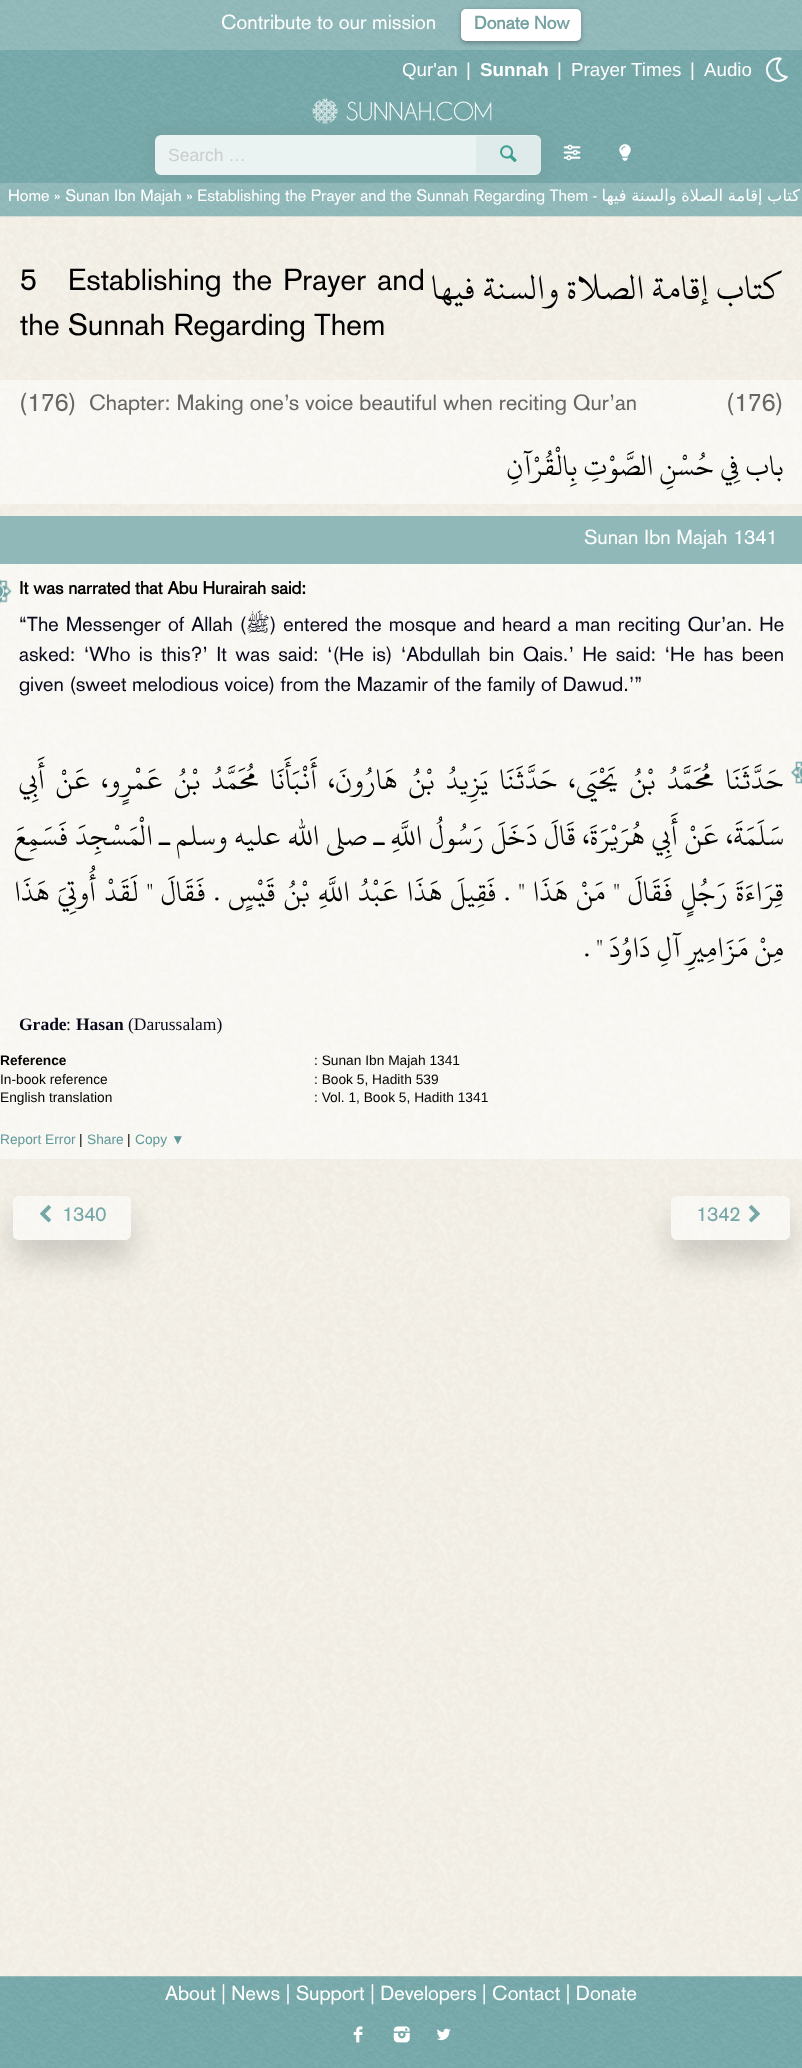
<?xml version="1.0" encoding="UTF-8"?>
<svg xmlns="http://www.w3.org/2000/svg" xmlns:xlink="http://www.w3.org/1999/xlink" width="802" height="2068">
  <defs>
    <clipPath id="clip1"><path d="M 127 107 h 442 v 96 h -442 z m 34 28 h 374 c 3.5 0 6 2.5 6 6 v 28 c 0 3.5 -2.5 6 -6 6 h -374 c -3.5 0 -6 -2.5 -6 -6 v -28 c 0 -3.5 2.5 -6 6 -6 z" clip-rule="evenodd" /></clipPath>
    <clipPath id="clip2"><path d="M 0 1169 h 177 v 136 h -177 z m 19 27 h 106 c 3.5 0 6 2.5 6 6 v 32 c 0 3.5 -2.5 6 -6 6 h -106 c -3.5 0 -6 -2.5 -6 -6 v -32 c 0 -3.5 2.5 -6 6 -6 z" clip-rule="evenodd" /></clipPath>
    <clipPath id="clip3"><path d="M 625 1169 h 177 v 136 h -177 z m 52 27 h 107 c 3.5 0 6 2.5 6 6 v 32 c 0 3.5 -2.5 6 -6 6 h -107 c -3.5 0 -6 -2.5 -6 -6 v -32 c 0 -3.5 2.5 -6 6 -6 z" clip-rule="evenodd" /></clipPath>
  </defs>
  <rect width="100%" height="100%" fill="#ffffff" />
  <image x="0" y="216" width="802" height="1761" xlink:href="image1.png" />
  <image x="0" y="0" width="802" height="217" xlink:href="image2.png" />
  <rect width="802" height="50" fill="#fbfaf8" fill-opacity="0.2" />
  <rect x="461" y="10" width="120" height="33" rx="5" fill="#000000" fill-opacity="0.3" filter="blur(2px)" />
  <rect x="461" y="9" width="120" height="32" rx="5" fill="#ffffff" />
  <image x="766" y="57" width="22" height="25" xlink:href="image3.png" />
  <image x="312" y="98" width="180" height="26" xlink:href="image4.png" />
  <image x="563" y="144" width="18" height="17" xlink:href="image5.png" />
  <g clip-path="url(#clip1)">
    <rect x="151" y="131" width="394" height="48" rx="10" fill="#75a1a1" filter="blur(7.5px)" />
  </g>
  <rect x="155" y="135" width="386" height="40" rx="6" fill="#ffffff" fill-opacity="0.85" />
  <path d="M 476 136 h 59 c 3.5 0 6 2.5 6 6 v 26 c 0 3.5 -2.5 6 -6 6 h -59 z" fill="#deebea" />
  <image x="619" y="144" width="12" height="17" xlink:href="image6.png" />
  <rect y="183" width="802" height="33" fill="#fbfaf8" fill-opacity="0.2" />
  <rect y="380" width="802" height="124" fill="#ffffff" fill-opacity="0.5" />
  <rect y="564" width="802" height="595" fill="#ffffff" fill-opacity="0.5" />
  <rect y="516" width="802" height="48" fill="#90b8b9" />
  <image x="0" y="579" width="12" height="25" xlink:href="image7.png" />
  <image x="791" y="761" width="11" height="23" xlink:href="image8.png" />
  <g clip-path="url(#clip2)">
    <rect x="13" y="1215" width="118" height="44" rx="6" fill="#000000" fill-opacity="0.16" filter="blur(15px)" />
  </g>
  <rect x="13" y="1196" width="118" height="44" rx="6" fill="#ffffff" fill-opacity="0.5" />
  <g clip-path="url(#clip3)">
    <rect x="671" y="1215" width="119" height="44" rx="6" fill="#000000" fill-opacity="0.16" filter="blur(15px)" />
  </g>
  <rect x="671" y="1196" width="119" height="44" rx="6" fill="#ffffff" fill-opacity="0.5" />
  <image x="0" y="1976" width="802" height="92" xlink:href="image9.png" />
  <image x="353" y="2026" width="10" height="17" xlink:href="image10.png" />
  <image x="393" y="2026" width="17" height="17" xlink:href="image11.png" />
  <image x="436" y="2028" width="15" height="13" xlink:href="image12.png" />
  <text x="221" y="29" style="font-family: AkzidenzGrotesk; font-size: 20px; fill: #ffffff">Contribute to our mission</text>
  <text x="474" y="29" style="font-family: AkzidenzGrotesk; font-size: 18px; font-weight: bold; fill: #75a1a1">Donate Now</text>
  <text x="402" y="76" style="font-family: Liberation Sans; font-size: 18.75px; fill: #ffffff">Qur'an</text>
  <text x="466" y="76" style="font-family: Liberation Sans; font-size: 18.75px; fill: #ffffff">|</text>
  <text x="480" y="76" style="font-family: Liberation Sans; font-size: 18.75px; font-weight: bold; fill: #ffffff">Sunnah</text>
  <text x="557" y="76" style="font-family: Liberation Sans; font-size: 18.75px; fill: #ffffff">|</text>
  <text x="571" y="76" style="font-family: Liberation Sans; font-size: 18.75px; fill: #ffffff">Prayer Times</text>
  <text x="690" y="76" style="font-family: Liberation Sans; font-size: 18.75px; fill: #ffffff">|</text>
  <text x="704" y="76" style="font-family: Liberation Sans; font-size: 18.75px; fill: #ffffff">Audio</text>
  <text x="168" y="161" style="font-family: Liberation Sans; font-size: 17.5px; fill: #cccccc">Search …</text>
  <text x="500" y="161" style="font-family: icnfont; font-size: 21px; fill: #3ba08f">l</text>
  <text x="8" y="201" style="font-family: AkzidenzGrotesk; font-size: 16.25px; fill: #ffffff">Home » Sunan Ibn Majah » Establishing the Prayer and the Sunnah Regarding Them -</text>
  <text x="800" y="201" word-spacing="-0.5" style="font-family: DejaVu Sans; font-size: 16.25px; direction: rtl; fill: #ffffff">كتاب إقامة الصلاة والسنة فيها</text>
  <text x="20" y="290" style="font-family: AkzidenzGrotesk; font-size: 30px; fill: #000000">5</text>
  <text x="68" y="290" word-spacing="2.9" style="font-family: AkzidenzGrotesk; font-size: 30px; fill: #000000">Establishing the Prayer and</text>
  <text x="782" y="299" style="font-family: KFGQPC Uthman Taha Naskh; font-size: 37.5px; direction: rtl; fill: #000000">كتاب إقامة الصلاة والسنة فيها</text>
  <text x="20" y="335" style="font-family: AkzidenzGrotesk; font-size: 30px; fill: #000000">the Sunnah Regarding Them</text>
  <text x="19" y="411" style="font-family: AkzidenzGrotesk; font-size: 25px; fill: #666666">(176)</text>
  <text x="89" y="410" style="font-family: AkzidenzGrotesk; font-size: 21.7px; fill: #666666">Chapter: Making one’s voice beautiful when reciting Qur’an</text>
  <text x="726" y="411" style="font-family: AkzidenzGrotesk; font-size: 25px; fill: #666666">(176)</text>
  <text x="784" y="475" style="font-family: KFGQPC Uthman Taha Naskh; font-size: 31.25px; direction: rtl; fill: #000000">باب فِي حُسْنِ الصَّوْتِ بِالْقُرْآنِ</text>
  <text x="584" y="544" style="font-family: AkzidenzGrotesk; font-size: 20px; fill: #ffffff">Sunan Ibn Majah 1341</text>
  <text x="19" y="594" style="font-family: AkzidenzGrotesk; font-size: 17.5px; font-weight: bold; fill: #000000">It was narrated that Abu Hurairah said:</text>
  <text x="19" y="631" word-spacing="1.5" style="font-family: AkzidenzGrotesk; font-size: 20px; fill: #08081a">“The Messenger of Allah (</text>
  <text x="270" y="631" style="font-family: Lateef; font-size: 20px; direction: rtl; fill: #08081a">ﷺ</text>
  <text x="270" y="631" word-spacing="1.5" style="font-family: AkzidenzGrotesk; font-size: 20px; fill: #08081a">) entered the mosque and heard a man reciting Qur’an. He</text>
  <text x="19" y="661" word-spacing="2.9" style="font-family: AkzidenzGrotesk; font-size: 20px; fill: #08081a">asked: ‘Who is this?’ It was said: ‘(He is) ‘Abdullah bin Qais.’ He said: ‘He has been</text>
  <text x="19" y="691" style="font-family: AkzidenzGrotesk; font-size: 20px; fill: #08081a">given (sweet melodious voice) from the Mazamir of the family of Dawud.’”</text>
  <text x="784" y="789" word-spacing="4.75" style="font-family: KFGQPC Uthman Taha Naskh; font-size: 31.25px; direction: rtl; fill: #000000">حَدَّثَنَا مُحَمَّدُ بْنُ يَحْيَى، حَدَّثَنَا يَزِيدُ بْنُ هَارُونَ، أَنْبَأَنَا مُحَمَّدُ بْنُ عَمْرٍو، عَنْ أَبِي</text>
  <text x="784" y="845" word-spacing="0.5" style="font-family: KFGQPC Uthman Taha Naskh; font-size: 31.25px; direction: rtl; fill: #000000">سَلَمَةَ، عَنْ أَبِي هُرَيْرَةَ، قَالَ دَخَلَ رَسُولُ اللَّهِ ـ صلى الله عليه وسلم ـ الْمَسْجِدَ فَسَمِعَ</text>
  <text x="784" y="901" word-spacing="1.75" style="font-family: KFGQPC Uthman Taha Naskh; font-size: 31.25px; direction: rtl; fill: #000000">قِرَاءَةَ رَجُلٍ فَقَالَ " مَنْ هَذَا " . فَقِيلَ هَذَا عَبْدُ اللَّهِ بْنُ قَيْسٍ . فَقَالَ " لَقَدْ أُوتِيَ هَذَا</text>
  <text x="784" y="957" style="font-family: KFGQPC Uthman Taha Naskh; font-size: 31.25px; direction: rtl; fill: #000000">مِنْ مَزَامِيرِ آلِ دَاوُدَ " .</text>
  <text x="19" y="1030" style="font-family: Liberation Serif; font-size: 17.5px; font-weight: bold; fill: #08081a">Grade</text>
  <text x="66" y="1030" style="font-family: Liberation Serif; font-size: 17.5px; fill: #08081a">:</text>
  <text x="76" y="1030" style="font-family: Liberation Serif; font-size: 17.5px; font-weight: bold; fill: #08081a">Hasan</text>
  <text x="128" y="1030" style="font-family: Liberation Serif; font-size: 17.5px; fill: #08081a">(Darussalam)</text>
  <text x="0" y="1065" style="font-family: Liberation Sans; font-size: 13.75px; font-weight: bold; fill: #000000">Reference</text>
  <text x="314" y="1065" style="font-family: Liberation Sans; font-size: 13.75px; fill: #000000">: Sunan Ibn Majah 1341</text>
  <text x="0" y="1084" style="font-family: Liberation Sans; font-size: 13.75px; fill: #000000">In-book reference</text>
  <text x="314" y="1084" style="font-family: Liberation Sans; font-size: 13.75px; fill: #000000">: Book 5, Hadith 539</text>
  <text x="0" y="1102" style="font-family: Liberation Sans; font-size: 13.75px; fill: #000000">English translation</text>
  <text x="314" y="1102" style="font-family: Liberation Sans; font-size: 13.75px; fill: #000000">: Vol. 1, Book 5, Hadith 1341</text>
  <text x="0" y="1144" style="font-family: Liberation Sans; font-size: 13.75px; fill: #5f9999">Report Error</text>
  <text x="79" y="1144" style="font-family: Liberation Sans; font-size: 13.75px; fill: #000000">|</text>
  <text x="87" y="1144" style="font-family: Liberation Sans; font-size: 13.75px; fill: #5f9999">Share</text>
  <text x="127" y="1144" style="font-family: Liberation Sans; font-size: 13.75px; fill: #000000">|</text>
  <text x="135" y="1144" style="font-family: Liberation Sans; font-size: 13.75px; fill: #5f9999">Copy ▼</text>
  <text x="40" y="1221" style="font-family: icnfont; font-size: 19px; fill: #75a7a8">&lt;</text>
  <text x="62" y="1221" style="font-family: AkzidenzGrotesk; font-size: 20px; fill: #75a7a8">1340</text>
  <text x="696" y="1221" style="font-family: AkzidenzGrotesk; font-size: 20px; fill: #75a7a8">1342</text>
  <text x="749" y="1221" style="font-family: icnfont; font-size: 19px; fill: #75a7a8">&gt;</text>
  <text x="165" y="2000" style="font-family: AkzidenzGrotesk; font-size: 20px; fill: #ffffff">About | News | Support | Developers | Contact | Donate</text>
</svg>
